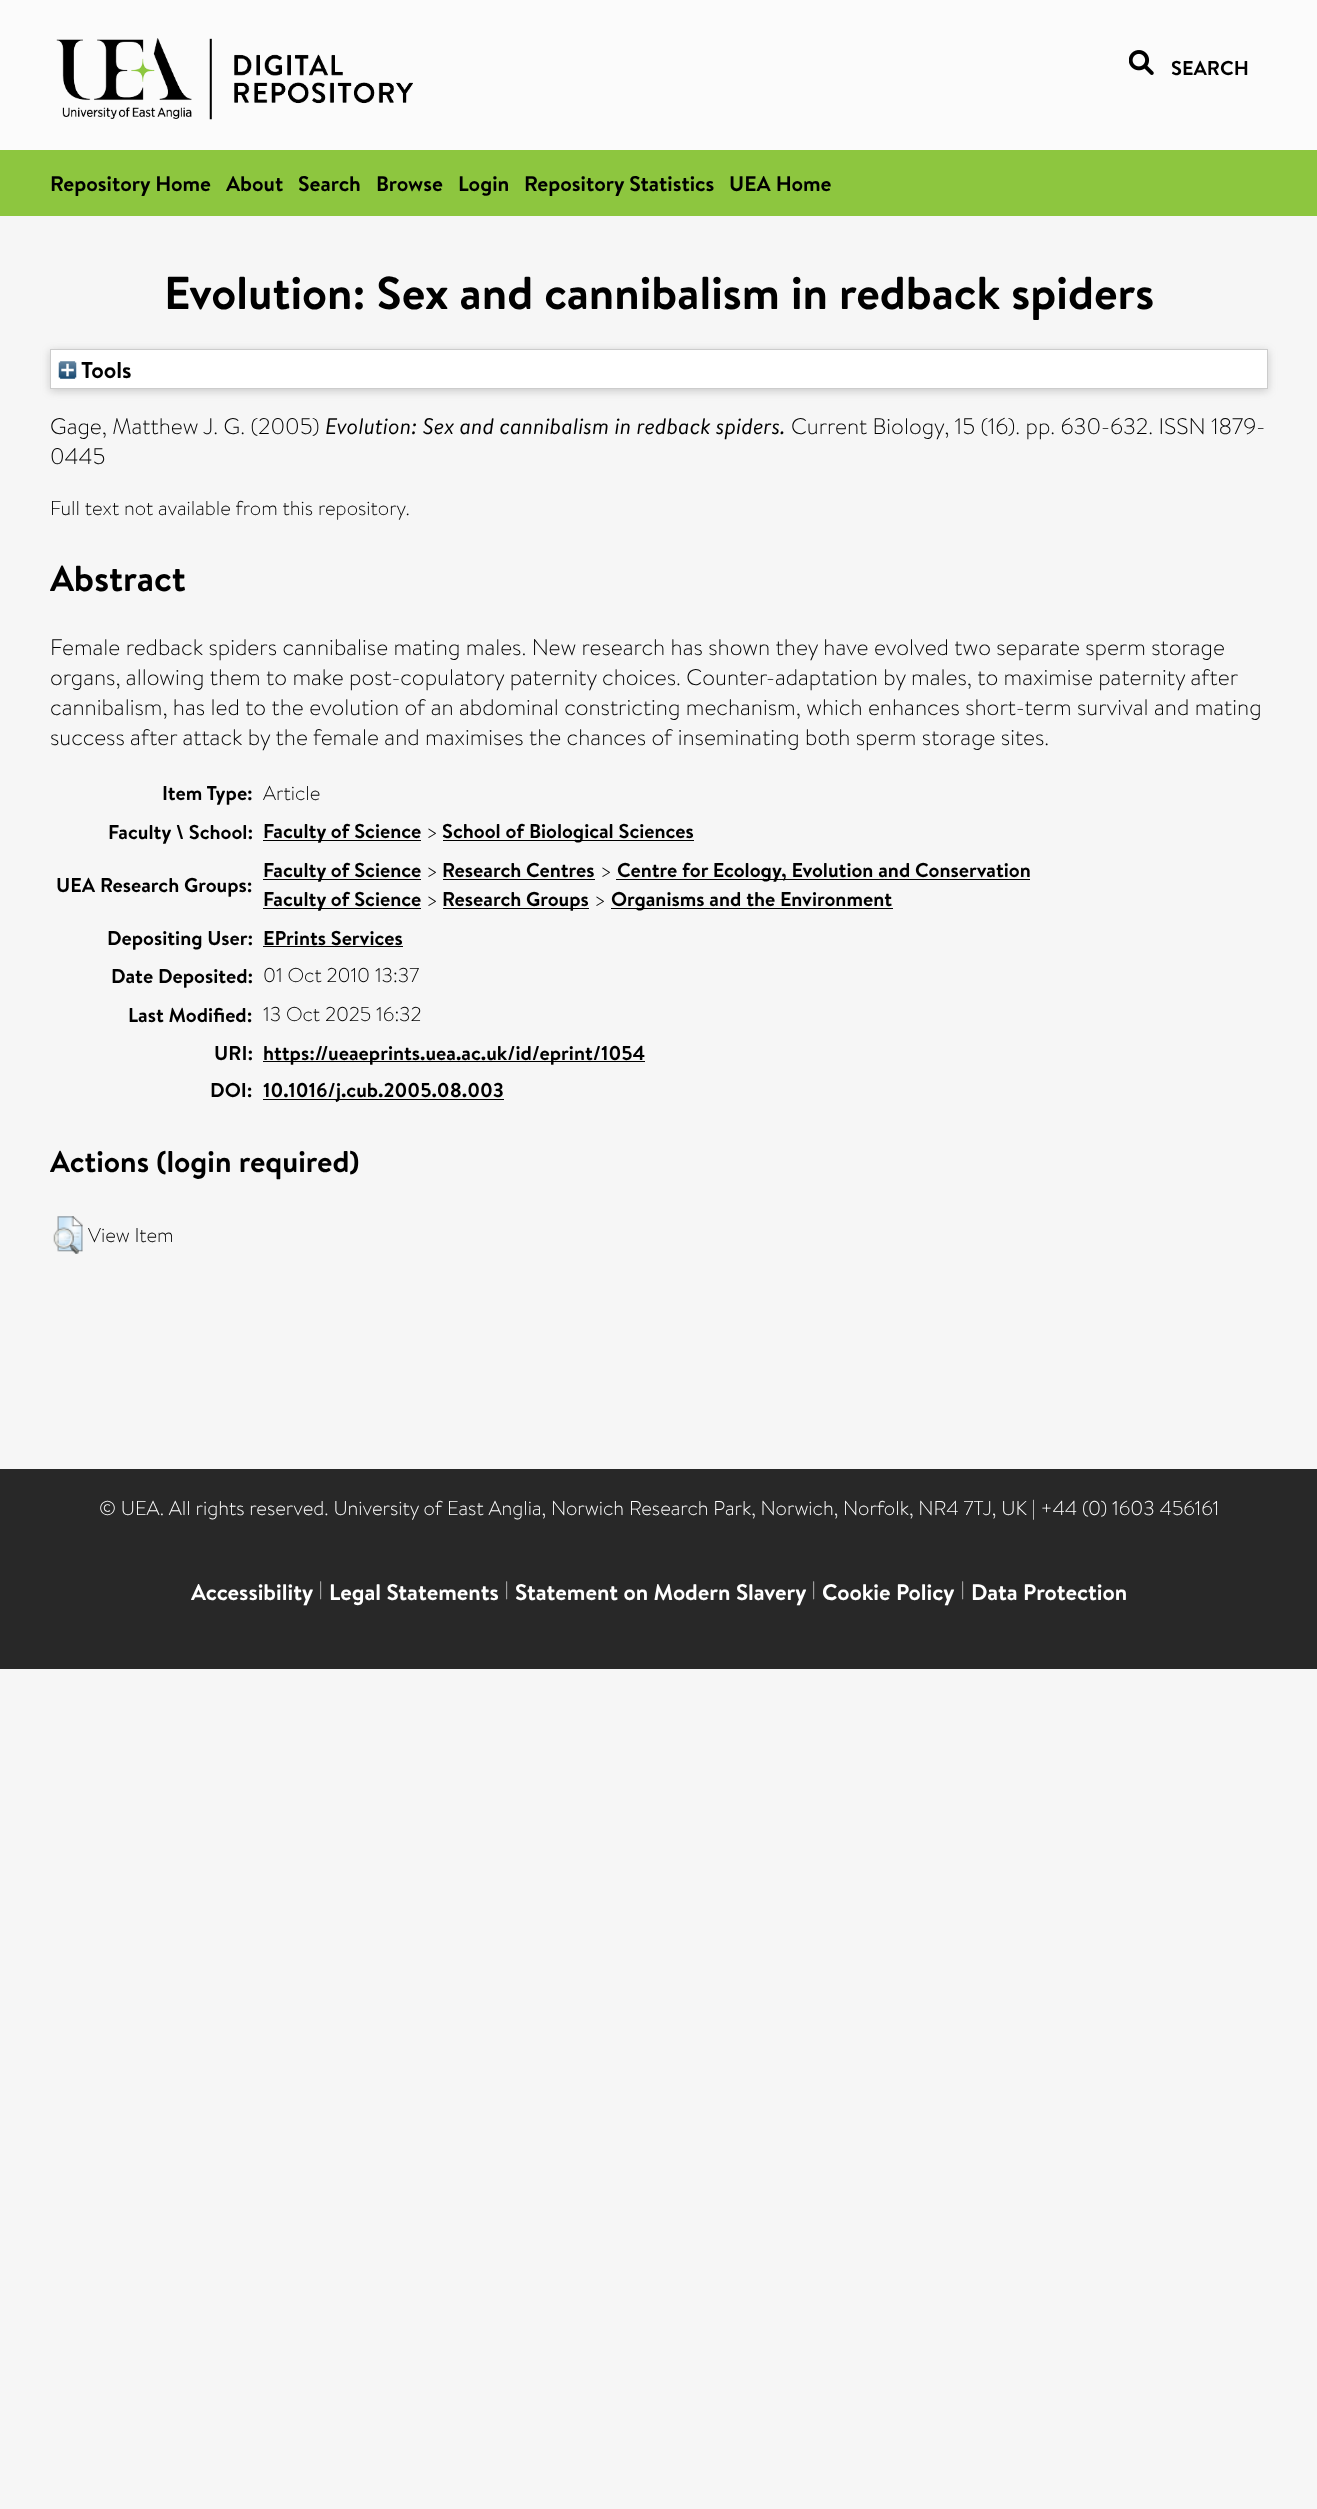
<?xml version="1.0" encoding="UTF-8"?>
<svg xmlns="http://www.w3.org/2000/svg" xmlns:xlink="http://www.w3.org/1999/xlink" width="1317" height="2509">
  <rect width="100%" height="100%" fill="#f6f6f6" />
  <rect width="1317" height="150" fill="#fbfbfb" />
  <image x="56" y="38" width="357" height="82" xlink:href="image1.png" />
  <image x="1129" y="50" width="25" height="25" xlink:href="image2.png" />
  <rect y="150" width="1317" height="66" fill="#8dc63f" />
  <rect x="50" y="351" width="1218" height="40" fill="#646464" fill-opacity="0.3" filter="blur(4px)" />
  <rect x="50.5" y="349.5" width="1217" height="39" fill="#ffffff" stroke="#cccccc" />
  <image x="58" y="361" width="19" height="18" xlink:href="image3.png" />
  <rect x="263" y="840" width="158" height="1" fill="#000000" />
  <rect x="443" y="840" width="251" height="1" fill="#000000" />
  <rect x="263" y="879" width="158" height="1" fill="#000000" />
  <rect x="443" y="879" width="152" height="1" fill="#000000" />
  <rect x="616" y="879" width="414" height="1" fill="#000000" />
  <rect x="263" y="908" width="158" height="1" fill="#000000" />
  <rect x="443" y="908" width="146" height="1" fill="#000000" />
  <rect x="611" y="908" width="282" height="1" fill="#000000" />
  <rect x="263" y="946" width="140" height="1" fill="#000000" />
  <rect x="263" y="1061" width="382" height="1" fill="#000000" />
  <rect x="263" y="1099" width="241" height="1" fill="#000000" />
  <image x="53" y="1216" width="30" height="38" xlink:href="image4.png" />
  <rect y="1469" width="1317" height="200" fill="#282828" />
  <text x="1171" y="75" style="font-family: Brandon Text; font-size: 20px; font-weight: bold; fill: #000000">SEARCH</text>
  <text x="50" y="191" style="font-family: Brandon Text; font-size: 21.25px; font-weight: bold; fill: #000000">Repository Home</text>
  <text x="226" y="191" style="font-family: Brandon Text; font-size: 21.25px; font-weight: bold; fill: #000000">About</text>
  <text x="298" y="191" style="font-family: Brandon Text; font-size: 21.25px; font-weight: bold; fill: #000000">Search</text>
  <text x="376" y="191" style="font-family: Brandon Text; font-size: 21.25px; font-weight: bold; fill: #000000">Browse</text>
  <text x="458" y="191" style="font-family: Brandon Text; font-size: 21.25px; font-weight: bold; fill: #000000">Login</text>
  <text x="524" y="191" style="font-family: Brandon Text; font-size: 21.25px; font-weight: bold; fill: #000000">Repository Statistics</text>
  <text x="729" y="191" style="font-family: Brandon Text; font-size: 21.25px; font-weight: bold; fill: #000000">UEA Home</text>
  <text x="164" y="309" style="font-family: Brandon Text; font-size: 46px; font-weight: bold; fill: #000000">Evolution: Sex and cannibalism in redback spiders</text>
  <text x="81" y="378" style="font-family: Brandon Text; font-size: 23px; font-weight: bold; fill: #000000">Tools</text>
  <text x="50" y="434" style="font-family: Brandon Text; font-size: 22.5px; font-weight: 300; fill: #000000">Gage, Matthew J. G. (2005)</text>
  <text x="325" y="434" style="font-family: Brandon Text; font-size: 22.5px; font-style: italic; fill: #000000">Evolution: Sex and cannibalism in redback spiders.</text>
  <text x="791" y="434" style="font-family: Brandon Text; font-size: 22.5px; font-weight: 300; fill: #000000">Current Biology, 15 (16). pp. 630-632. ISSN 1879-</text>
  <text x="50" y="464" style="font-family: Brandon Text; font-size: 22.5px; font-weight: 300; fill: #000000">0445</text>
  <text x="50" y="515" style="font-family: Brandon Text; font-size: 20px; font-weight: 300; fill: #000000">Full text not available from this repository.</text>
  <text x="50" y="591" style="font-family: Brandon Text; font-size: 36px; font-weight: bold; fill: #000000">Abstract</text>
  <text x="50" y="655" style="font-family: Brandon Text; font-size: 22.5px; font-weight: 300; fill: #000000">Female redback spiders cannibalise mating males. New research has shown they have evolved two separate sperm storage</text>
  <text x="50" y="685" style="font-family: Brandon Text; font-size: 22.5px; font-weight: 300; fill: #000000">organs, allowing them to make post-copulatory paternity choices. Counter-adaptation by males, to maximise paternity after</text>
  <text x="50" y="715" style="font-family: Brandon Text; font-size: 22.5px; font-weight: 300; fill: #000000">cannibalism, has led to the evolution of an abdominal constricting mechanism, which enhances short-term survival and mating</text>
  <text x="50" y="745" style="font-family: Brandon Text; font-size: 22.5px; font-weight: 300; fill: #000000">success after attack by the female and maximises the chances of inseminating both sperm storage sites.</text>
  <text x="162" y="800" style="font-family: Brandon Text; font-size: 20px; font-weight: bold; fill: #000000">Item Type:</text>
  <text x="263" y="800" style="font-family: Brandon Text; font-size: 20px; font-weight: 300; fill: #000000">Article</text>
  <text x="108" y="839" style="font-family: Brandon Text; font-size: 20px; font-weight: bold; fill: #000000">Faculty \ School:</text>
  <text x="263" y="838" style="font-family: Brandon Text; font-size: 20px; font-weight: bold; fill: #000000">Faculty of Science</text>
  <text x="426" y="838" style="font-family: Brandon Text; font-size: 20px; font-weight: 300; fill: #000000">&gt;</text>
  <text x="442" y="838" style="font-family: Brandon Text; font-size: 20px; font-weight: bold; fill: #000000">School of Biological Sciences</text>
  <text x="56" y="892" style="font-family: Brandon Text; font-size: 20px; font-weight: bold; fill: #000000">UEA Research Groups:</text>
  <text x="263" y="877" style="font-family: Brandon Text; font-size: 20px; font-weight: bold; fill: #000000">Faculty of Science</text>
  <text x="426" y="877" style="font-family: Brandon Text; font-size: 20px; font-weight: 300; fill: #000000">&gt;</text>
  <text x="442" y="877" style="font-family: Brandon Text; font-size: 20px; font-weight: bold; fill: #000000">Research Centres</text>
  <text x="600" y="877" style="font-family: Brandon Text; font-size: 20px; font-weight: 300; fill: #000000">&gt;</text>
  <text x="617" y="877" style="font-family: Brandon Text; font-size: 20px; font-weight: bold; fill: #000000">Centre for Ecology, Evolution and Conservation</text>
  <text x="263" y="906" style="font-family: Brandon Text; font-size: 20px; font-weight: bold; fill: #000000">Faculty of Science</text>
  <text x="426" y="906" style="font-family: Brandon Text; font-size: 20px; font-weight: 300; fill: #000000">&gt;</text>
  <text x="442" y="906" style="font-family: Brandon Text; font-size: 20px; font-weight: bold; fill: #000000">Research Groups</text>
  <text x="594" y="906" style="font-family: Brandon Text; font-size: 20px; font-weight: 300; fill: #000000">&gt;</text>
  <text x="611" y="906" style="font-family: Brandon Text; font-size: 20px; font-weight: bold; fill: #000000">Organisms and the Environment</text>
  <text x="107" y="945" style="font-family: Brandon Text; font-size: 20px; font-weight: bold; fill: #000000">Depositing User:</text>
  <text x="263" y="945" style="font-family: Brandon Text; font-size: 20px; font-weight: bold; fill: #000000">EPrints Services</text>
  <text x="111" y="983" style="font-family: Brandon Text; font-size: 20px; font-weight: bold; fill: #000000">Date Deposited:</text>
  <text x="263" y="982" style="font-family: Brandon Text; font-size: 20px; font-weight: 300; fill: #000000">01 Oct 2010 13:37</text>
  <text x="128" y="1022" style="font-family: Brandon Text; font-size: 20px; font-weight: bold; fill: #000000">Last Modified:</text>
  <text x="263" y="1021" style="font-family: Brandon Text; font-size: 20px; font-weight: 300; fill: #000000">13 Oct 2025 16:32</text>
  <text x="214" y="1060" style="font-family: Brandon Text; font-size: 20px; font-weight: bold; fill: #000000">URI:</text>
  <text x="263" y="1060" style="font-family: Brandon Text; font-size: 20px; font-weight: bold; fill: #000000">https://ueaeprints.uea.ac.uk/id/eprint/1054</text>
  <text x="210" y="1097" style="font-family: Brandon Text; font-size: 20px; font-weight: bold; fill: #000000">DOI:</text>
  <text x="263" y="1097" style="font-family: Brandon Text; font-size: 20px; font-weight: bold; fill: #000000">10.1016/j.cub.2005.08.003</text>
  <text x="50" y="1172" style="font-family: Brandon Text; font-size: 30px; font-weight: bold; fill: #000000">Actions (login required)</text>
  <text x="88" y="1242" style="font-family: Brandon Text; font-size: 20px; font-weight: 300; fill: #000000">View Item</text>
  <text x="99" y="1515" style="font-family: Brandon Text; font-size: 20px; font-weight: 300; fill: #ffffff">© UEA. All rights reserved. University of East Anglia, Norwich Research Park, Norwich, Norfolk, NR4 7TJ, UK | +44 (0) 1603 456161</text>
  <text x="191" y="1600" style="font-family: Brandon Text; font-size: 22.5px; font-weight: bold; fill: #ffffff">Accessibility</text>
  <text x="319" y="1595" style="font-family: Brandon Text; font-size: 18px; font-weight: 300; fill: #ffffff">|</text>
  <text x="329" y="1600" style="font-family: Brandon Text; font-size: 22.5px; font-weight: bold; fill: #ffffff">Legal Statements</text>
  <text x="505" y="1595" style="font-family: Brandon Text; font-size: 18px; font-weight: 300; fill: #ffffff">|</text>
  <text x="515" y="1600" style="font-family: Brandon Text; font-size: 22.5px; font-weight: bold; fill: #ffffff">Statement on Modern Slavery</text>
  <text x="812" y="1595" style="font-family: Brandon Text; font-size: 18px; font-weight: 300; fill: #ffffff">|</text>
  <text x="822" y="1600" style="font-family: Brandon Text; font-size: 22.5px; font-weight: bold; fill: #ffffff">Cookie Policy</text>
  <text x="961" y="1595" style="font-family: Brandon Text; font-size: 18px; font-weight: 300; fill: #ffffff">|</text>
  <text x="971" y="1600" style="font-family: Brandon Text; font-size: 22.5px; font-weight: bold; fill: #ffffff">Data Protection</text>
</svg>
